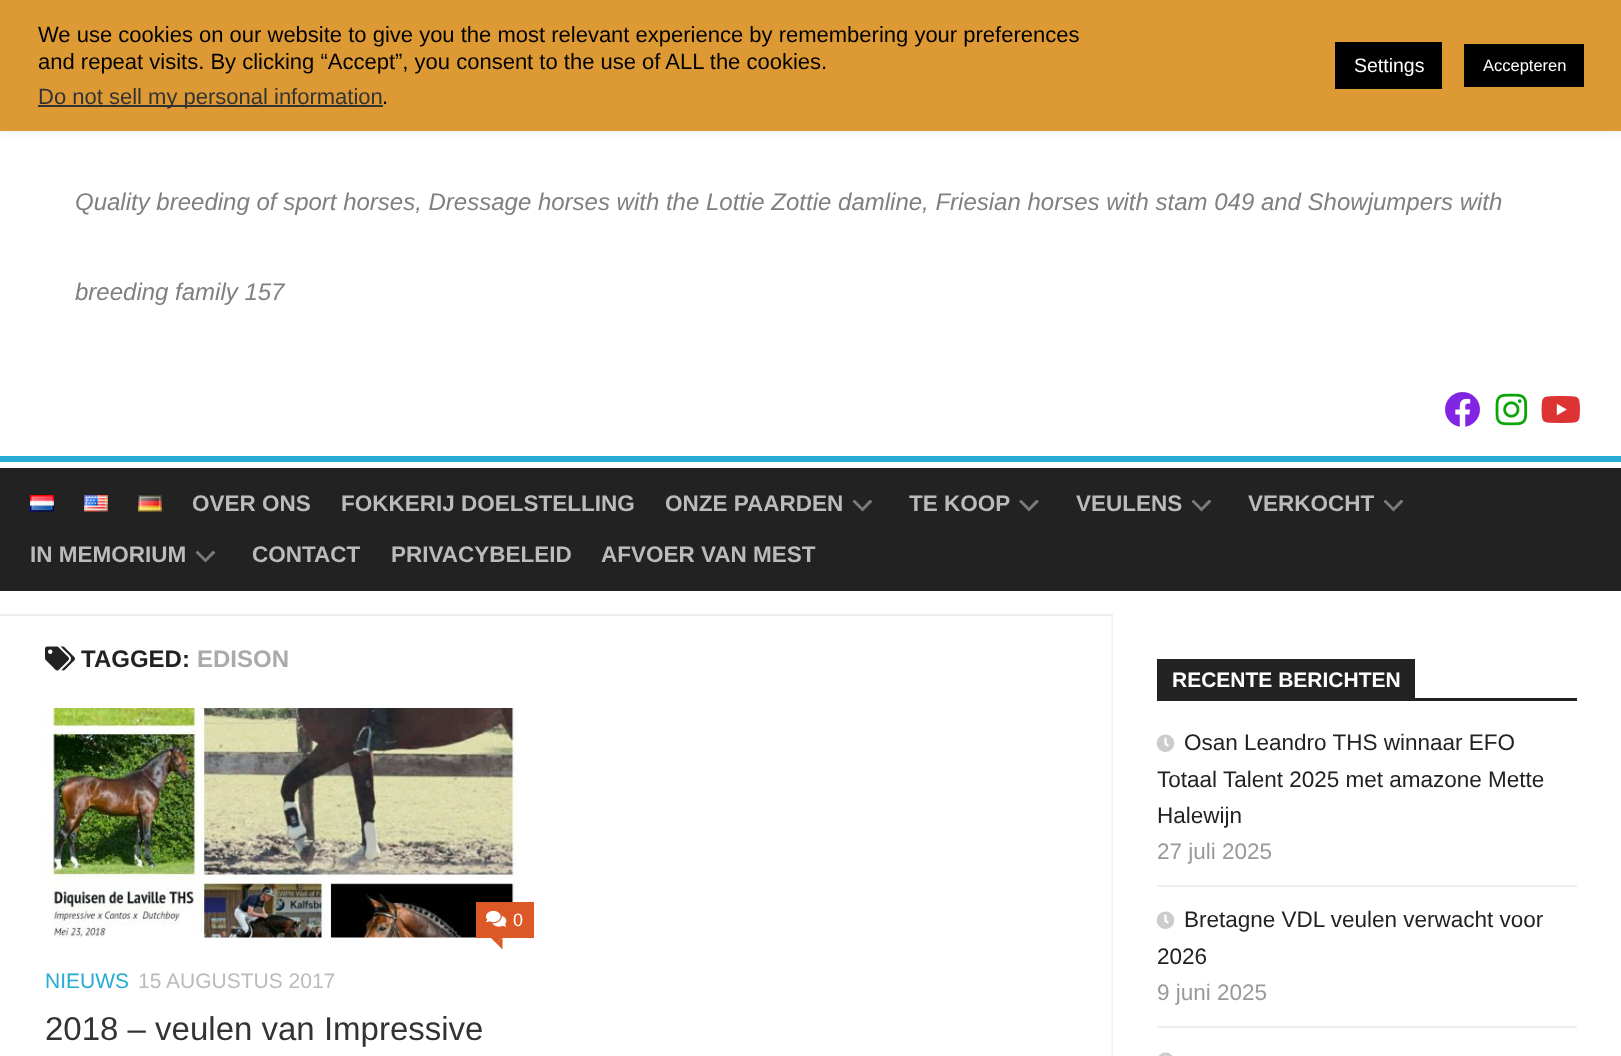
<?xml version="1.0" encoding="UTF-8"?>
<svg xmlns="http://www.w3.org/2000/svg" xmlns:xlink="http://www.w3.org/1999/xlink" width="1621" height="1056">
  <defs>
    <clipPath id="clip1"><rect x="852" y="500" width="21" height="12" /></clipPath>
    <clipPath id="clip2"><rect x="1019" y="500" width="21" height="12" /></clipPath>
    <clipPath id="clip3"><rect x="1191" y="500" width="21" height="12" /></clipPath>
    <clipPath id="clip4"><rect x="1383" y="500" width="21" height="12" /></clipPath>
    <clipPath id="clip5"><rect x="195" y="551" width="21" height="12" /></clipPath>
  </defs>
  <rect width="100%" height="100%" fill="#ffffff" />
  <rect y="-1" width="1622" height="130" fill="#acabab" fill-opacity="0.3" filter="blur(7.5px)" />
  <rect width="1621" height="131" fill="#dd9933" />
  <rect x="38" y="105" width="345" height="2" fill="#333333" />
  <rect x="1335" y="42" width="107" height="47" fill="#000000" />
  <rect x="1464" y="44" width="120" height="43" fill="#000000" />
  <rect y="456" width="1621" height="6" fill="#26abd3" />
  <image x="1445" y="392" width="35" height="35" xlink:href="image1.png" />
  <image x="1495" y="393" width="33" height="33" xlink:href="image2.png" />
  <image x="1541" y="396" width="39" height="27" xlink:href="image3.png" />
  <rect y="468" width="1621" height="123" fill="#222222" />
  <image x="30" y="495" width="24" height="17" xlink:href="image4.png" />
  <image x="84" y="495" width="24" height="17" xlink:href="image5.png" />
  <image x="138" y="495" width="24" height="17" xlink:href="image6.png" />
  <g clip-path="url(#clip1)">
    <path d="M 862.5 507.5 l 7.5 -8 l 2.5 2 l -10 10 l -10 -10 l 2 -2 z" fill="#7a7a7a" fill-rule="evenodd" />
  </g>
  <g clip-path="url(#clip2)">
    <path d="M 1029 507.5 l 7.5 -8 l 2.5 2 l -10 10 l -10 -10 l 2 -2 z" fill="#7a7a7a" fill-rule="evenodd" />
  </g>
  <g clip-path="url(#clip3)">
    <path d="M 1201.5 507.5 l 7.5 -8 l 2.5 2 l -10 10 l -10 -10 l 2 -2 z" fill="#7a7a7a" fill-rule="evenodd" />
  </g>
  <g clip-path="url(#clip4)">
    <path d="M 1393.5 507.5 l 7.5 -8 l 2.5 2 l -10 10 l -10 -10 l 2 -2 z" fill="#7a7a7a" fill-rule="evenodd" />
  </g>
  <g clip-path="url(#clip5)">
    <path d="M 205.5 558.5 l 7.5 -8 l 2.5 2 l -10 10 l -10 -10 l 2 -2 z" fill="#7a7a7a" fill-rule="evenodd" />
  </g>
  <image x="1111" y="613" width="2" height="443" xlink:href="image7.png" />
  <rect y="614" width="1112" height="2" fill="#eeeeee" />
  <image x="45" y="646" width="30" height="25" xlink:href="image8.png" />
  <image x="45" y="708" width="477" height="230" xlink:href="image9.png" />
  <rect x="476" y="902" width="58" height="36" fill="#dd5827" />
  <image x="486" y="910" width="21" height="17" xlink:href="image10.png" />
  <path d="M 490.5 937.5 h 12 l -6 6 z" fill="#dd5827" />
  <path d="M 502.5 937.5 v 12 l -6 -6 z" fill="#dd5827" />
  <rect x="1157" y="698" width="420" height="3" fill="#222222" />
  <rect x="1157" y="659" width="258" height="39" fill="#222222" />
  <rect x="1157" y="885" width="420" height="2" fill="#eeeeee" />
  <image x="1156" y="734" width="19" height="18" xlink:href="image11.png" />
  <rect x="1157" y="1026" width="420" height="2" fill="#eeeeee" />
  <image x="1156" y="911" width="19" height="18" xlink:href="image11.png" />
  <image x="1158" y="1052" width="15" height="4" xlink:href="image12.png" />
  <text x="38" y="42" style="font-family: Liberation Sans; font-size: 22px; fill: #000000">We use cookies on our website to give you the most relevant experience by remembering your preferences</text>
  <text x="38" y="69" style="font-family: Liberation Sans; font-size: 22px; fill: #000000">and repeat visits. By clicking “Accept”, you consent to the use of ALL the cookies.</text>
  <text x="38" y="104" style="font-family: Liberation Sans; font-size: 22px; fill: #333333">Do not sell my personal information</text>
  <text x="382" y="104" style="font-family: Liberation Sans; font-size: 22px; fill: #000000">.</text>
  <text x="1354" y="72" style="font-family: Liberation Sans; font-size: 19.5px; fill: #ffffff">Settings</text>
  <text x="1483" y="71" style="font-family: Liberation Sans; font-size: 16.5px; fill: #ffffff">Accepteren</text>
  <text x="75" y="210" style="font-family: Liberation Sans; font-size: 24px; font-style: italic; fill: #808080">Quality breeding of sport horses, Dressage horses with the Lottie Zottie damline, Friesian horses with stam 049 and Showjumpers with</text>
  <text x="75" y="300" style="font-family: Liberation Sans; font-size: 24px; font-style: italic; fill: #808080">breeding family 157</text>
  <text x="192" y="511" style="font-family: Liberation Sans; font-size: 22.5px; font-weight: bold; fill: #bbbbbb">OVER ONS</text>
  <text x="341" y="511" style="font-family: Liberation Sans; font-size: 22.5px; font-weight: bold; fill: #bbbbbb">FOKKERIJ DOELSTELLING</text>
  <text x="665" y="511" style="font-family: Liberation Sans; font-size: 22.5px; font-weight: bold; fill: #bbbbbb">ONZE PAARDEN</text>
  <text x="909" y="511" style="font-family: Liberation Sans; font-size: 22.5px; font-weight: bold; fill: #bbbbbb">TE KOOP</text>
  <text x="1076" y="511" style="font-family: Liberation Sans; font-size: 22.5px; font-weight: bold; fill: #bbbbbb">VEULENS</text>
  <text x="1248" y="511" style="font-family: Liberation Sans; font-size: 22.5px; font-weight: bold; fill: #bbbbbb">VERKOCHT</text>
  <text x="30" y="562" style="font-family: Liberation Sans; font-size: 22.5px; font-weight: bold; fill: #bbbbbb">IN MEMORIUM</text>
  <text x="252" y="562" style="font-family: Liberation Sans; font-size: 22.5px; font-weight: bold; fill: #bbbbbb">CONTACT</text>
  <text x="391" y="562" style="font-family: Liberation Sans; font-size: 22.5px; font-weight: bold; fill: #bbbbbb">PRIVACYBELEID</text>
  <text x="601" y="562" style="font-family: Liberation Sans; font-size: 22.5px; font-weight: bold; fill: #bbbbbb">AFVOER VAN MEST</text>
  <text x="81" y="667" style="font-family: Liberation Sans; font-size: 24px; font-weight: bold; fill: #222222">TAGGED:</text>
  <text x="197" y="667" style="font-family: Liberation Sans; font-size: 24px; font-weight: bold; fill: #aaaaaa">EDISON</text>
  <text x="513" y="926" style="font-family: Liberation Sans; font-size: 18px; fill: #ffffff">0</text>
  <text x="45" y="988" style="font-family: Liberation Sans; font-size: 21px; fill: #26abd3">NIEUWS</text>
  <text x="138" y="988" style="font-family: Liberation Sans; font-size: 21px; fill: #bbbbbb">15 AUGUSTUS 2017</text>
  <text x="45" y="1040" style="font-family: Liberation Sans; font-size: 33px; fill: #333333">2018 – veulen van Impressive</text>
  <text x="1172" y="687" style="font-family: Liberation Sans; font-size: 21px; font-weight: bold; fill: #ffffff">RECENTE BERICHTEN</text>
  <text x="1184" y="750" style="font-family: Liberation Sans; font-size: 22.5px; fill: #222222">Osan Leandro THS winnaar EFO</text>
  <text x="1157" y="787" style="font-family: Liberation Sans; font-size: 22.5px; fill: #222222">Totaal Talent 2025 met amazone Mette</text>
  <text x="1157" y="823" style="font-family: Liberation Sans; font-size: 22.5px; fill: #222222">Halewijn</text>
  <text x="1157" y="859" style="font-family: Liberation Sans; font-size: 22.5px; fill: #999999">27 juli 2025</text>
  <text x="1184" y="927" style="font-family: Liberation Sans; font-size: 22.5px; fill: #222222">Bretagne VDL veulen verwacht voor</text>
  <text x="1157" y="964" style="font-family: Liberation Sans; font-size: 22.5px; fill: #222222">2026</text>
  <text x="1157" y="1000" style="font-family: Liberation Sans; font-size: 22.5px; fill: #999999">9 juni 2025</text>
</svg>
